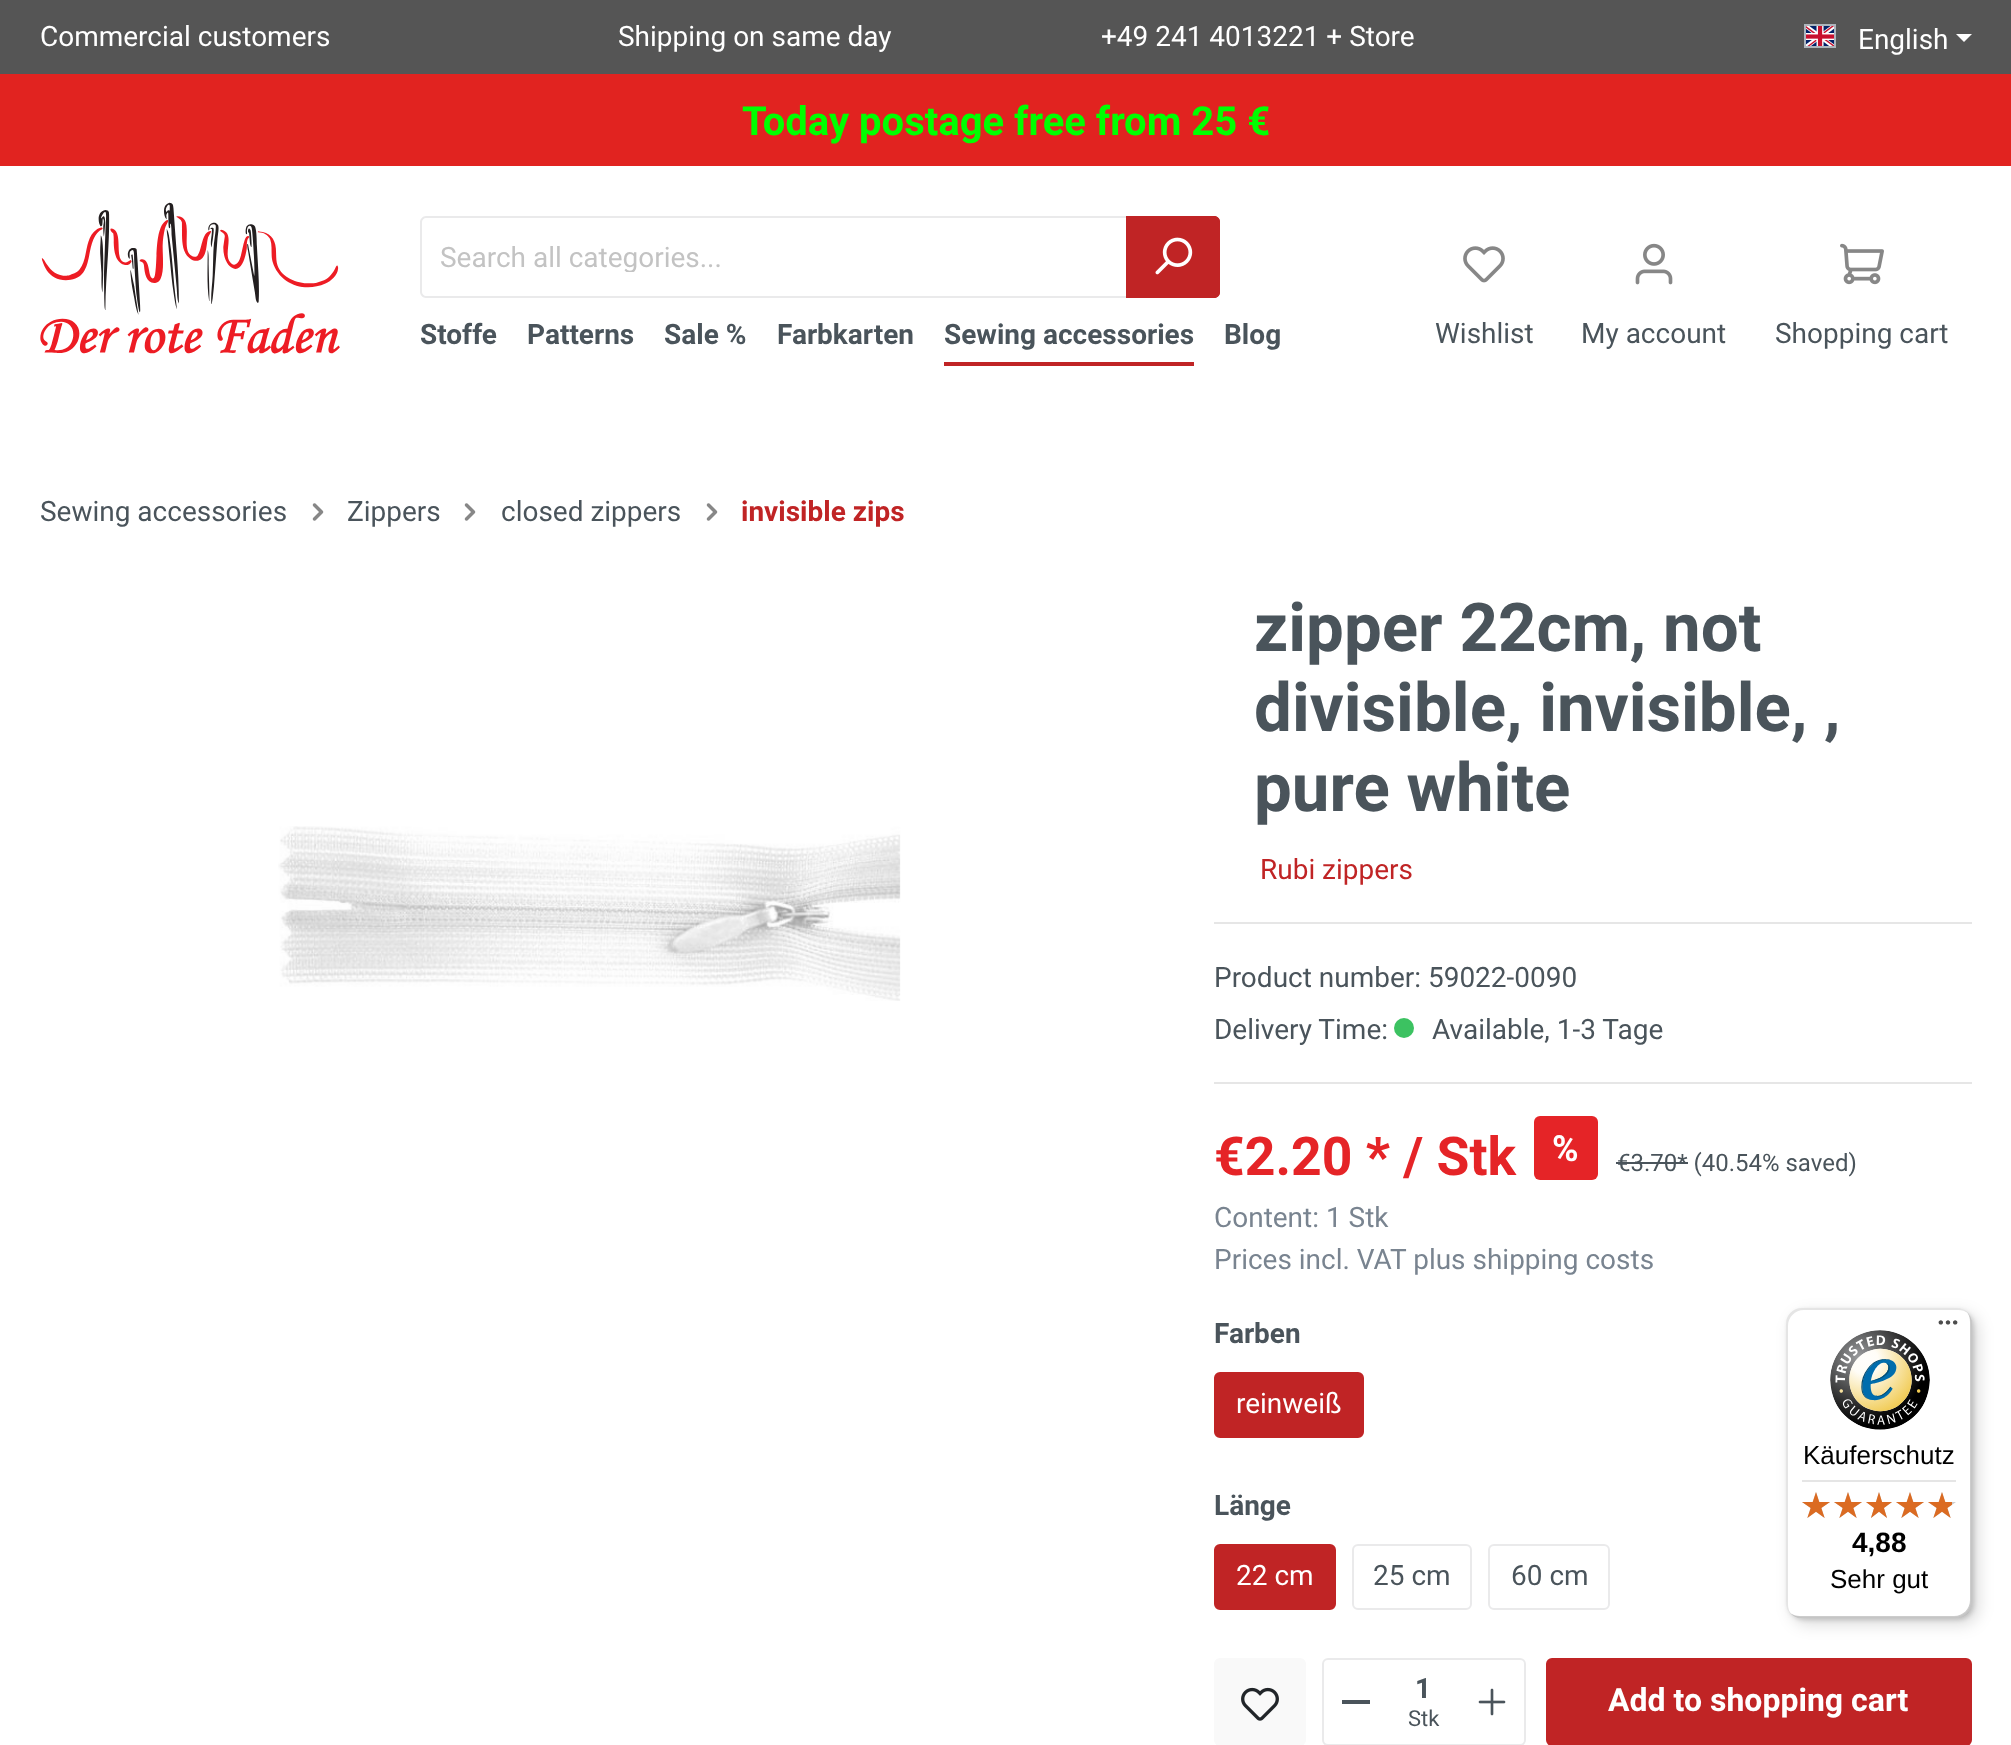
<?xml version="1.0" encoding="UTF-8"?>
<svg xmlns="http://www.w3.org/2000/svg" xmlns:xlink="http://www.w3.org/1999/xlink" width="2011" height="1745">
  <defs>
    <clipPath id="clip1"><rect x="440" y="240" width="670" height="32" /></clipPath>
  </defs>
  <rect width="100%" height="100%" fill="#ffffff" />
  <rect width="2011" height="74" fill="#555555" />
  <image x="1806" y="26" width="28" height="20" xlink:href="image1.png" />
  <rect x="1805" y="25" width="30" height="22" fill="none" stroke="#adb5bd" stroke-width="2" />
  <path d="M 1956 34 h 16 l -8 8 z" fill="#ffffff" />
  <rect y="74" width="2011" height="92" fill="#e12320" />
  <image x="40" y="202" width="300" height="152" xlink:href="image2.png" />
  <path d="M 426 216 h 702 v 82 h -702 c -3 0 -6 -3 -6 -6 v -70 c 0 -3 3 -6 6 -6 z m 0 2 h 702 v 78 h -702 c -2 0 -4 -2 -4 -4 v -70 c 0 -2 2 -4 4 -4 z" fill="#eaeaeb" fill-rule="evenodd" />
  <path d="M 1126 216 h 88 c 3.5 0 6 2.5 6 6 v 70 c 0 3.5 -2.5 6 -6 6 h -88 z" fill="#c02425" />
  <path d="M 1126 216 h 88 c 3 0 6 3 6 6 v 70 c 0 3 -3 6 -6 6 h -88 z m 0 2 h 88 c 2 0 4 2 4 4 v 70 c 0 2 -2 4 -4 4 h -88 z" fill="#c02425" fill-rule="evenodd" />
  <image x="1155" y="237" width="38" height="38" xlink:href="image3.png" />
  <rect x="944" y="362" width="250" height="4" fill="#c02425" />
  <image x="1463" y="246" width="42" height="37" xlink:href="image4.png" />
  <image x="1635" y="243" width="38" height="42" xlink:href="image5.png" />
  <image x="1840" y="243" width="44" height="42" xlink:href="image6.png" />
  <image x="312" y="503" width="12" height="18" xlink:href="image7.png" />
  <image x="464" y="503" width="12" height="18" xlink:href="image7.png" />
  <image x="706" y="503" width="12" height="18" xlink:href="image7.png" />
  <image x="278" y="826" width="623" height="175" xlink:href="image8.png" />
  <rect x="1214" y="922" width="758" height="2" fill="#e6e6e6" />
  <circle cx="1404" cy="1028" r="10" fill="#3cc261" />
  <rect x="1214" y="1082" width="758" height="2" fill="#e6e6e6" />
  <rect x="1534" y="1116" width="64" height="64" rx="6" fill="#e52427" />
  <rect x="1616" y="1162" width="72" height="2" fill="#4a545b" />
  <rect x="1215" y="1373" width="148" height="64" rx="5" fill="#c02425" stroke="#c02425" stroke-width="2" />
  <rect x="1215" y="1545" width="120" height="64" rx="5" fill="#c02425" stroke="#c02425" stroke-width="2" />
  <rect x="1353" y="1545" width="118" height="64" rx="5" fill="none" stroke="#eaeaeb" stroke-width="2" />
  <rect x="1489" y="1545" width="120" height="64" rx="5" fill="none" stroke="#eaeaeb" stroke-width="2" />
  <rect x="1214" y="1658" width="92" height="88" rx="6" fill="#f9f9f9" />
  <image x="1241" y="1687" width="38" height="34" xlink:href="image9.png" />
  <rect x="1323" y="1659" width="202" height="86" rx="5" fill="none" stroke="#eaeaeb" stroke-width="2" />
  <rect x="1342" y="1700" width="28" height="4" fill="#4a545b" />
  <image x="1478" y="1688" width="28" height="28" xlink:href="image10.png" />
  <rect x="1547" y="1659" width="424" height="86" rx="5" fill="#c02425" stroke="#c02425" stroke-width="2" />
  <rect x="1792" y="1314" width="186" height="310" rx="16" fill="#000000" fill-opacity="0.15" filter="blur(8px)" />
  <rect x="1788" y="1310" width="186" height="310" rx="16" fill="#000000" fill-opacity="0.15" filter="blur(2px)" />
  <rect x="1786" y="1308" width="186" height="310" rx="16" fill="#ffffff" />
  <path d="M 1804 1310 h 154 c 4 0 7 1 10 3 c -3 -3 -7 -5 -12 -5 h -154 c -9 0 -16 7 -16 16 v 278 c 0 5 2 9 5 12 c -2 -3 -3 -6 -3 -10 v -278 c 0 -9 7 -16 16 -16 z" fill="#000000" fill-opacity="0.1" />
  <path d="M 1790 1613 c 3 3 7 5 12 5 h 154 c 9 0 16 -7 16 -16 v -278 c 0 -5 -2 -9 -5 -12 c 2 3 3 6 3 10 v 278 c 0 9 -7 16 -16 16 h -154 c -4 0 -7 -1 -10 -3 z" fill="#000000" fill-opacity="0.2" />
  <path d="M 1791 1613 c 3 3 7 5 11 5 h 154 c 9 0 16 -7 16 -16 v -278 c 0 -4 -2 -8 -5 -11 c 3 3 4 6 4 10 v 278 c 0 9 -7 16 -16 16 h -154 c -4 0 -7 -1 -10 -4 z" fill="#323232" fill-opacity="0.2" />
  <path d="M 1791 1613 c 3 3 7 5 11 5 h 154 c 9 0 16 -7 16 -16 v -278 c 0 -4 -2 -8 -5 -11 c 3 3 4 6 4 10 v 278 c 0 9 -7 16 -16 16 h -154 c -4 0 -7 -1 -10 -4 z" fill="#ffffff" fill-opacity="0.3" />
  <image x="1938" y="1320" width="20" height="5" xlink:href="image11.png" />
  <image x="1830" y="1330" width="100" height="100" xlink:href="image12.png" />
  <rect x="1802" y="1480" width="154" height="2" fill="#e5e5e5" />
  <image x="1802" y="1492" width="28" height="26" xlink:href="image13.png" />
  <image x="1834" y="1492" width="28" height="26" xlink:href="image13.png" />
  <image x="1866" y="1492" width="26" height="26" xlink:href="image14.png" />
  <image x="1896" y="1492" width="28" height="26" xlink:href="image13.png" />
  <image x="1928" y="1492" width="28" height="26" xlink:href="image13.png" />
  <image x="1802" y="1492" width="28" height="26" xlink:href="image15.png" />
  <image x="1834" y="1492" width="28" height="26" xlink:href="image15.png" />
  <image x="1866" y="1492" width="26" height="26" xlink:href="image16.png" />
  <image x="1896" y="1492" width="28" height="26" xlink:href="image15.png" />
  <image x="1928" y="1492" width="24" height="26" xlink:href="image17.png" />
  <text x="40" y="46" style="font-family: Roboto; font-size: 28px; fill: #ffffff">Commercial customers</text>
  <text x="618" y="46" style="font-family: Roboto; font-size: 28px; fill: #ffffff">Shipping on same day</text>
  <text x="1101" y="46" style="font-family: Roboto; font-size: 28px; fill: #ffffff">+49 241 4013221 + Store</text>
  <text x="1858" y="49" style="font-family: Roboto; font-size: 28px; fill: #ffffff">English</text>
  <text x="742" y="135" style="font-family: Roboto; font-size: 40px; font-weight: bold; fill: #00ff00">Today postage free from 25 €</text>
  <g clip-path="url(#clip1)">
    <text x="440" y="267" style="font-family: Roboto; font-size: 28px; fill: #c3c3c3">Search all categories...</text>
  </g>
  <text x="420" y="344" style="font-family: Roboto; font-size: 28px; font-weight: bold; fill: #4a545b">Stoffe</text>
  <text x="527" y="344" style="font-family: Roboto; font-size: 28px; font-weight: bold; fill: #4a545b">Patterns</text>
  <text x="664" y="344" style="font-family: Roboto; font-size: 28px; font-weight: bold; fill: #4a545b">Sale %</text>
  <text x="777" y="344" style="font-family: Roboto; font-size: 28px; font-weight: bold; fill: #4a545b">Farbkarten</text>
  <text x="944" y="344" style="font-family: Roboto; font-size: 28px; font-weight: bold; fill: #4a545b">Sewing accessories</text>
  <text x="1224" y="344" style="font-family: Roboto; font-size: 28px; font-weight: bold; fill: #4a545b">Blog</text>
  <text x="1435" y="343" style="font-family: Roboto; font-size: 28px; fill: #4a545b">Wishlist</text>
  <text x="1581" y="343" style="font-family: Roboto; font-size: 28px; fill: #4a545b">My account</text>
  <text x="1775" y="343" style="font-family: Roboto; font-size: 28px; fill: #4a545b">Shopping cart</text>
  <text x="40" y="521" style="font-family: Roboto; font-size: 28px; fill: #4a545b">Sewing accessories</text>
  <text x="347" y="521" style="font-family: Roboto; font-size: 28px; fill: #4a545b">Zippers</text>
  <text x="501" y="521" style="font-family: Roboto; font-size: 28px; fill: #4a545b">closed zippers</text>
  <text x="741" y="521" style="font-family: Roboto; font-size: 28px; font-weight: bold; fill: #c02425">invisible zips</text>
  <text x="1254" y="651" style="font-family: Roboto; font-size: 67.25px; font-weight: bold; fill: #4a545b">zipper 22cm, not</text>
  <text x="1254" y="731" style="font-family: Roboto; font-size: 67.25px; font-weight: bold; fill: #4a545b">divisible, invisible, ,</text>
  <text x="1254" y="811" style="font-family: Roboto; font-size: 67.25px; font-weight: bold; fill: #4a545b">pure white</text>
  <text x="1260" y="879" style="font-family: Roboto; font-size: 28px; fill: #c02425">Rubi zippers</text>
  <text x="1214" y="987" style="font-family: Roboto; font-size: 28px; fill: #4a545b">Product number: 59022-0090</text>
  <text x="1214" y="1039" style="font-family: Roboto; font-size: 28px; fill: #4a545b">Delivery Time:</text>
  <text x="1432" y="1039" style="font-family: Roboto; font-size: 28px; fill: #4a545b">Available, 1-3 Tage</text>
  <text x="1214" y="1175" style="font-family: Roboto; font-size: 53.5px; font-weight: bold; fill: #e52427">€2.20 * / Stk</text>
  <text x="1552" y="1161" style="font-family: Roboto; font-size: 36px; font-weight: bold; fill: #ffffff">%</text>
  <text x="1617" y="1171" style="font-family: Roboto; font-size: 24px; fill: #4a545b">€3.70* (40.54% saved)</text>
  <text x="1214" y="1227" style="font-family: Roboto; font-size: 28px; fill: #798490">Content: 1 Stk</text>
  <text x="1214" y="1269" style="font-family: Roboto; font-size: 28px; fill: #798490">Prices incl. VAT plus shipping costs</text>
  <text x="1214" y="1343" style="font-family: Roboto; font-size: 28px; font-weight: bold; fill: #4a545b">Farben</text>
  <text x="1236" y="1413" style="font-family: Roboto; font-size: 28px; fill: #ffffff">reinweiß</text>
  <text x="1214" y="1515" style="font-family: Roboto; font-size: 28px; font-weight: bold; fill: #4a545b">Länge</text>
  <text x="1236" y="1585" style="font-family: Roboto; font-size: 28px; fill: #ffffff">22 cm</text>
  <text x="1373" y="1585" style="font-family: Roboto; font-size: 28px; fill: #4a545b">25 cm</text>
  <text x="1511" y="1585" style="font-family: Roboto; font-size: 28px; fill: #4a545b">60 cm</text>
  <text x="1415" y="1698" style="font-family: Roboto; font-size: 28px; font-weight: bold; fill: #4a545b">1</text>
  <text x="1408" y="1726" style="font-family: Roboto; font-size: 22px; fill: #4a545b">Stk</text>
  <text x="1608" y="1711" style="font-family: Roboto; font-size: 32px; font-weight: bold; fill: #ffffff">Add to shopping cart</text>
  <text x="1803" y="1464" style="font-family: Liberation Sans; font-size: 26px; fill: #000000">Käuferschutz</text>
  <text x="1852" y="1552" style="font-family: Liberation Sans; font-size: 28px; font-weight: bold; fill: #000000">4,88</text>
  <text x="1830" y="1588" style="font-family: Liberation Sans; font-size: 26px; fill: #000000">Sehr gut</text>
</svg>
